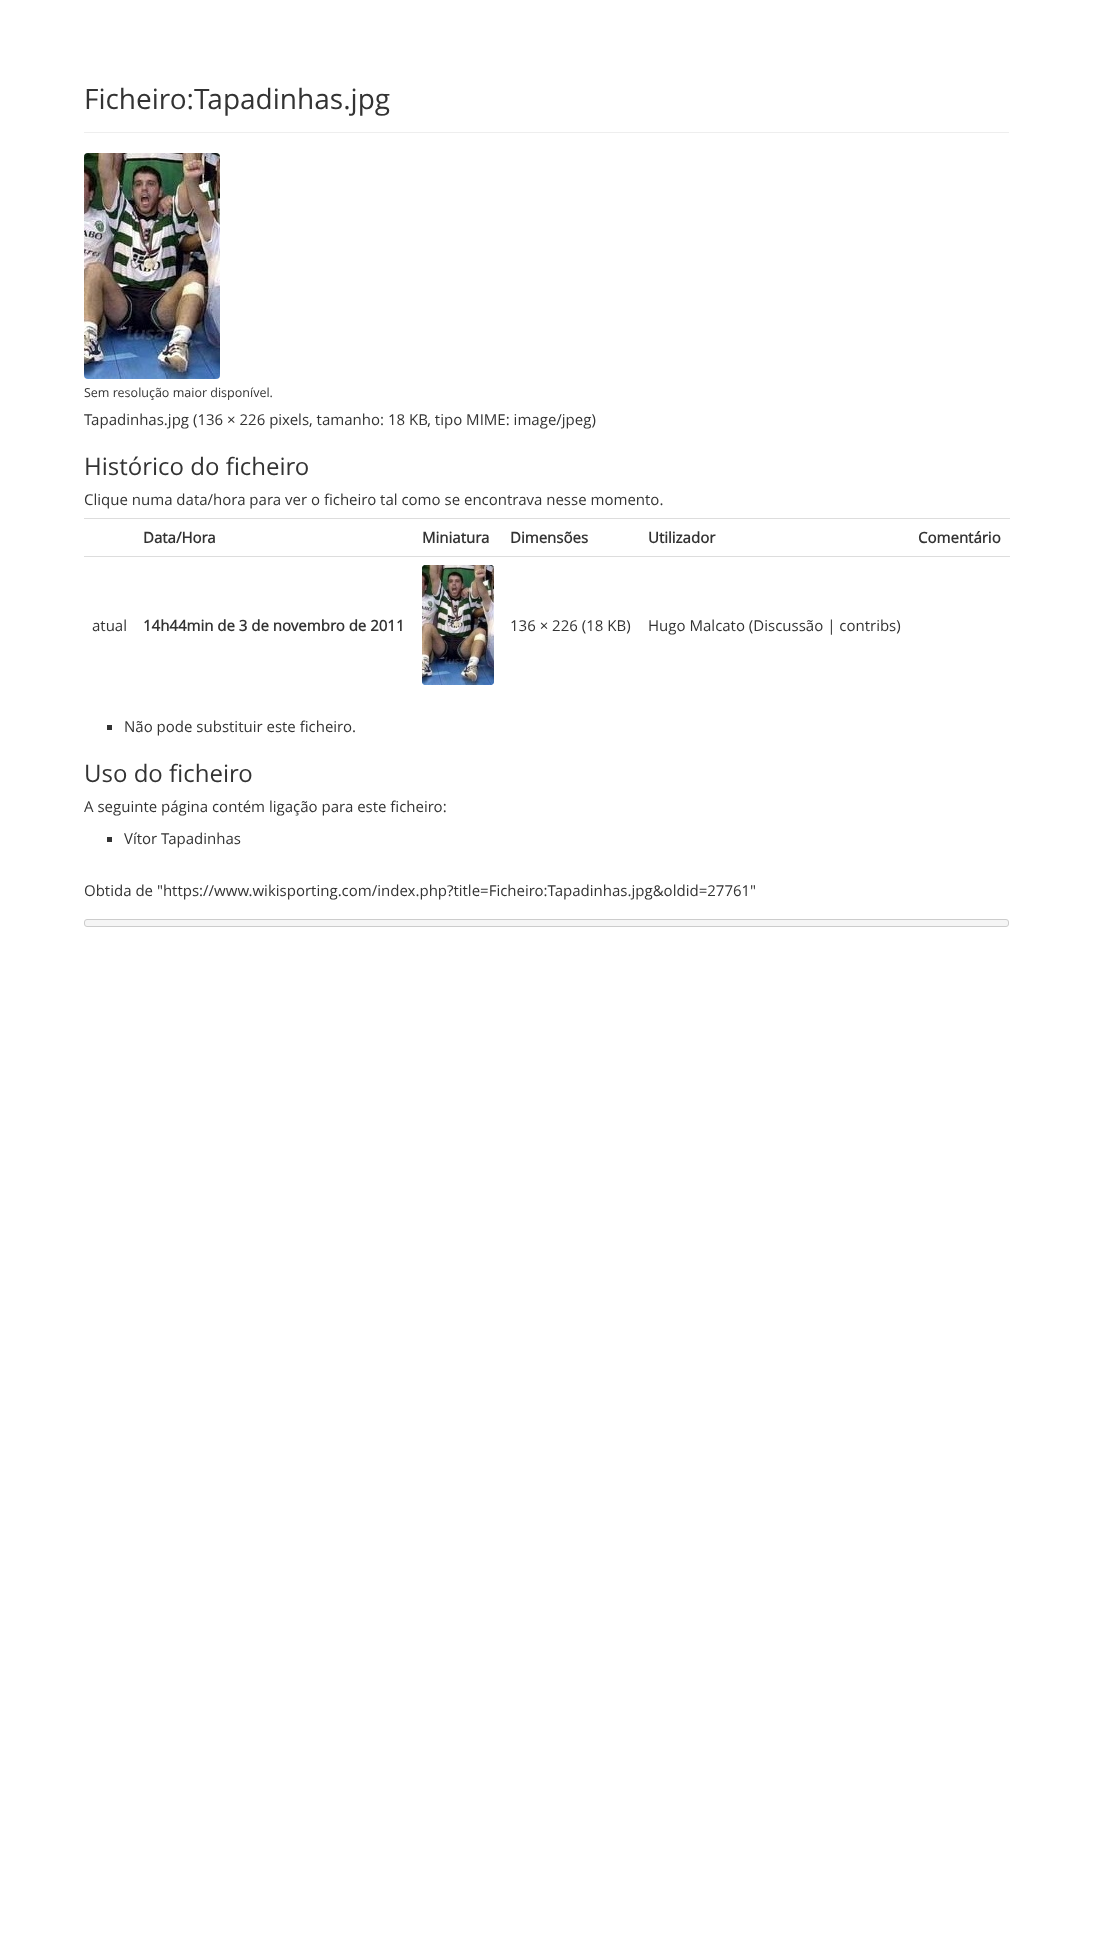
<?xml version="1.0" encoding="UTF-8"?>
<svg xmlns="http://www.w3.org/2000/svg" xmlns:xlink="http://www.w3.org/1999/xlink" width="1093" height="1936">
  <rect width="100%" height="100%" fill="#ffffff" />
  <rect x="84" y="132" width="925" height="1" fill="#eeeeee" />
  <image x="84" y="153" width="136" height="226" xlink:href="image1.png" />
  <rect x="84" y="518" width="926" height="1" fill="#dddddd" />
  <rect x="84" y="556" width="926" height="1" fill="#dddddd" />
  <image x="422" y="565" width="72" height="120" xlink:href="image2.png" />
  <image x="422" y="565" width="72" height="120" xlink:href="image3.png" />
  <rect x="107" y="725" width="5" height="5" fill="#333333" />
  <rect x="107" y="837" width="5" height="5" fill="#333333" />
  <rect x="84.5" y="919.5" width="924" height="7" rx="2.5" fill="#f5f5f5" stroke="#cccccc" />
  <text x="84" y="109" style="font-family: Open Sans; font-size: 28px; fill: #333333">Ficheiro:Tapadinhas.jpg</text>
  <text x="84" y="397" style="font-family: Open Sans; font-size: 12.5px; fill: #333333">Sem resolução maior disponível.</text>
  <text x="84" y="425" style="font-family: Open Sans; font-size: 15px; fill: #333333">Tapadinhas.jpg (136 × 226 pixels, tamanho: 18 KB, tipo MIME: image/jpeg)</text>
  <text x="84" y="475" style="font-family: Open Sans; font-size: 24px; fill: #333333">Histórico do ficheiro</text>
  <text x="84" y="505" style="font-family: Open Sans; font-size: 15px; fill: #333333">Clique numa data/hora para ver o ficheiro tal como se encontrava nesse momento.</text>
  <text x="143" y="543" style="font-family: Open Sans; font-size: 15px; font-weight: bold; fill: #333333">Data/Hora</text>
  <text x="422" y="543" style="font-family: Open Sans; font-size: 15px; font-weight: bold; fill: #333333">Miniatura</text>
  <text x="510" y="543" style="font-family: Open Sans; font-size: 15px; font-weight: bold; fill: #333333">Dimensões</text>
  <text x="648" y="543" style="font-family: Open Sans; font-size: 15px; font-weight: bold; fill: #333333">Utilizador</text>
  <text x="918" y="543" style="font-family: Open Sans; font-size: 15px; font-weight: bold; fill: #333333">Comentário</text>
  <text x="92" y="631" style="font-family: Open Sans; font-size: 15px; fill: #333333">atual</text>
  <text x="143" y="631" style="font-family: Open Sans; font-size: 15px; font-weight: bold; fill: #333333">14h44min de 3 de novembro de 2011</text>
  <text x="510" y="631" style="font-family: Open Sans; font-size: 15px; fill: #333333">136 × 226 (18 KB)</text>
  <text x="648" y="631" style="font-family: Open Sans; font-size: 15px; fill: #333333">Hugo Malcato (Discussão | contribs)</text>
  <text x="124" y="732" style="font-family: Open Sans; font-size: 15px; fill: #333333">Não pode substituir este ficheiro.</text>
  <text x="84" y="782" style="font-family: Open Sans; font-size: 24px; fill: #333333">Uso do ficheiro</text>
  <text x="84" y="812" style="font-family: Open Sans; font-size: 15px; fill: #333333">A seguinte página contém ligação para este ficheiro:</text>
  <text x="124" y="844" style="font-family: Open Sans; font-size: 15px; fill: #333333">Vítor Tapadinhas</text>
  <text x="84" y="896" style="font-family: Open Sans; font-size: 15px; fill: #333333">Obtida de "https://www.wikisporting.com/index.php?title=Ficheiro:Tapadinhas.jpg&amp;oldid=27761"</text>
</svg>
